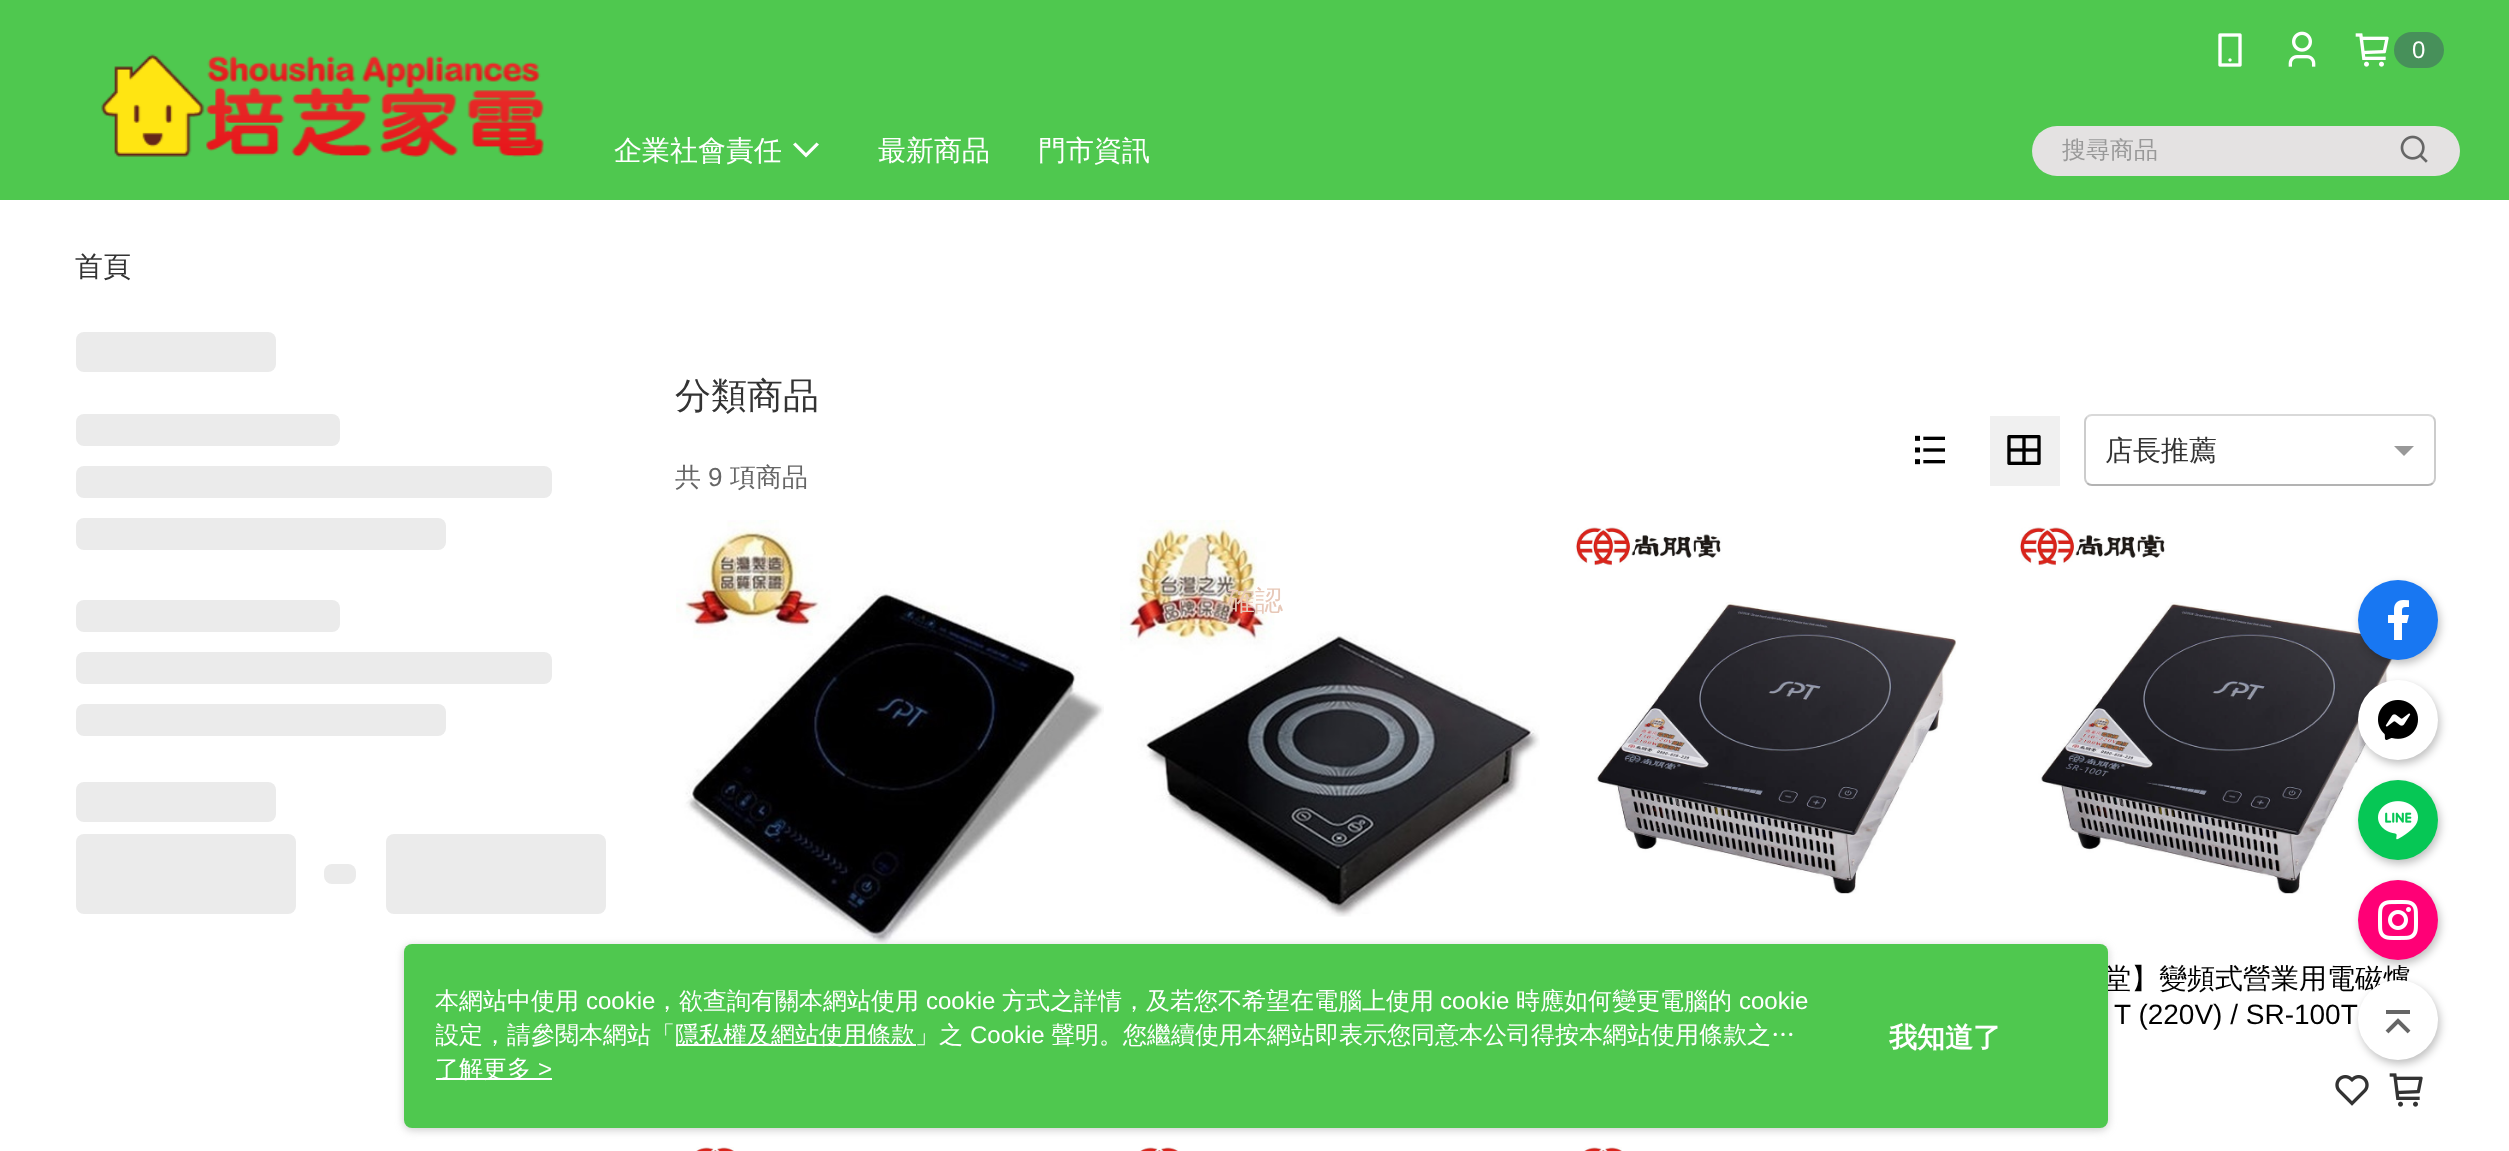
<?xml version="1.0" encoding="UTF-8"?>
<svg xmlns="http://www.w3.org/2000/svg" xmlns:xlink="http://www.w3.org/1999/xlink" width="2509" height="1151">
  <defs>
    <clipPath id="clip1"><rect x="436" y="984" width="1380" height="68" /></clipPath>
  </defs>
  <rect width="100%" height="100%" fill="#ffffff" />
  <rect width="2509" height="200" fill="#4fc84f" />
  <image x="101" y="54" width="443" height="103" xlink:href="image1.png" />
  <image x="2218" y="33" width="24" height="34" xlink:href="image2.png" />
  <image x="2288" y="31" width="28" height="36" xlink:href="image3.png" />
  <image x="2355" y="33" width="34" height="34" xlink:href="image4.png" />
  <rect x="2394" y="32" width="50" height="36" rx="18" fill="#47905a" />
  <path d="M 795.5 142.5 l -2.5 2 l 13 13 l 13 -13 l -2.5 -2 l -10.5 10.5 z" fill="#ffffff" />
  <rect x="2032" y="126" width="428" height="50" rx="25" fill="#e4e2e2" />
  <image x="2400" y="135" width="28" height="28" xlink:href="image5.png" />
  <image x="2019" y="527" width="381" height="367" xlink:href="image16.png" />
  <rect x="2360" y="584" width="80" height="80" rx="40" fill="#000000" fill-opacity="0.25" filter="blur(4.5px)" />
  <circle cx="2398" cy="620" r="40" fill="#1877f2" />
  <image x="2388" y="600" width="21" height="40" xlink:href="image6.png" />
  <rect x="2360" y="684" width="80" height="80" rx="40" fill="#000000" fill-opacity="0.25" filter="blur(4.5px)" />
  <circle cx="2398" cy="720" r="40" fill="#ffffff" />
  <image x="2378" y="700" width="40" height="40" xlink:href="image7.png" />
  <rect x="2360" y="784" width="80" height="80" rx="40" fill="#000000" fill-opacity="0.25" filter="blur(4.5px)" />
  <circle cx="2398" cy="820" r="40" fill="#06c755" />
  <image x="2378" y="801" width="40" height="39" xlink:href="image8.png" />
  <rect x="2360" y="884" width="80" height="80" rx="40" fill="#000000" fill-opacity="0.25" filter="blur(4.5px)" />
  <circle cx="2398" cy="920" r="40" fill="#ff0076" />
  <image x="2378" y="900" width="40" height="40" xlink:href="image9.png" />
  <image x="2335" y="1075" width="34" height="31" xlink:href="image17.png" />
  <image x="2389" y="1073" width="34" height="34" xlink:href="image18.png" />
  <rect x="2360" y="984" width="80" height="80" rx="40" fill="#000000" fill-opacity="0.25" filter="blur(4px)" />
  <rect x="76" y="332" width="200" height="40" rx="8" fill="#ebebeb" />
  <rect x="76" y="414" width="264" height="32" rx="8" fill="#ebebeb" />
  <rect x="76" y="466" width="476" height="32" rx="8" fill="#ebebeb" />
  <rect x="76" y="518" width="370" height="32" rx="8" fill="#ebebeb" />
  <rect x="76" y="600" width="264" height="32" rx="8" fill="#ebebeb" />
  <rect x="76" y="652" width="476" height="32" rx="8" fill="#ebebeb" />
  <rect x="76" y="704" width="370" height="32" rx="8" fill="#ebebeb" />
  <rect x="76" y="782" width="200" height="40" rx="8" fill="#ebebeb" />
  <rect x="76" y="834" width="220" height="80" rx="8" fill="#ebebeb" />
  <rect x="324" y="864" width="32" height="20" rx="8" fill="#ebebeb" />
  <rect x="386" y="834" width="220" height="80" rx="8" fill="#ebebeb" />
  <image x="1915" y="435" width="30" height="30" xlink:href="image11.png" />
  <rect x="1990" y="416" width="70" height="70" fill="#f0f0f0" />
  <image x="2007" y="435" width="34" height="30" xlink:href="image12.png" />
  <path d="M 2087 417 c 1.5 -1.5 3 -2 5 -2 h 336 c 2 0 3.5 0.5 5 2" fill="none" stroke="#d9d9d9" stroke-width="2" />
  <path d="M 2433 417 c 1.5 1.5 2 3 2 5 v 56 c 0 2 -0.5 3.5 -2 5" fill="none" stroke="#cccccc" stroke-width="2" />
  <path d="M 2433 483 c -1.5 1.5 -3 2 -5 2 h -336 c -2 0 -3.5 -0.5 -5 -2" fill="none" stroke="#b3b3b3" stroke-width="2" />
  <path d="M 2087 483 c -1.5 -1.5 -2 -3 -2 -5 v -56 c 0 -2 0.5 -3.5 2 -5" fill="none" stroke="#cccccc" stroke-width="2" />
  <path d="M 2394 446 h 20 l -10 10 z" fill="#999999" />
  <image x="676" y="520" width="428" height="424" xlink:href="image13.png" />
  <image x="1120" y="520" width="420" height="397" xlink:href="image14.png" />
  <image x="1575" y="527" width="381" height="367" xlink:href="image15.png" />
  <image x="696" y="1147" width="38" height="4" xlink:href="image19.png" />
  <image x="1140" y="1147" width="38" height="4" xlink:href="image20.png" />
  <image x="1584" y="1147" width="38" height="4" xlink:href="image20.png" />
  <rect x="404" y="946" width="1704" height="184" rx="8" fill="#979797" fill-opacity="0.5" filter="blur(4px)" />
  <text x="2412" y="58" style="font-family: Liberation Sans; font-size: 24px; fill: #ffffff">0</text>
  <text x="614" y="160" style="font-family: WenQuanYi Zen Hei; font-size: 28px; font-weight: 500; fill: #ffffff">企業社會責任</text>
  <text x="878" y="160" style="font-family: WenQuanYi Zen Hei; font-size: 28px; font-weight: 500; fill: #ffffff">最新商品</text>
  <text x="1038" y="160" style="font-family: WenQuanYi Zen Hei; font-size: 28px; font-weight: 500; fill: #ffffff">門市資訊</text>
  <text x="2062" y="158" style="font-family: WenQuanYi Zen Hei; font-size: 24px; font-weight: 500; fill: #999999">搜尋商品</text>
  <text x="75" y="276" style="font-family: WenQuanYi Zen Hei; font-size: 28px; font-weight: 500; fill: #333333">首頁</text>
  <text x="675" y="408" style="font-family: WenQuanYi Zen Hei; font-size: 36px; font-weight: 500; fill: #333333">分類商品</text>
  <text x="2105" y="460" style="font-family: WenQuanYi Zen Hei; font-size: 28px; font-weight: 500; fill: #333333">店長推薦</text>
  <text x="675" y="486" style="font-family: WenQuanYi Zen Hei; font-size: 26px; font-weight: 500; fill: #666666">共</text>
  <text x="708" y="486" style="font-family: Liberation Sans; font-size: 26px; fill: #666666">9</text>
  <text x="730" y="486" style="font-family: WenQuanYi Zen Hei; font-size: 26px; font-weight: 500; fill: #666666">項商品</text>
  <text x="2103" y="988" style="font-family: WenQuanYi Zen Hei; font-size: 28px; font-weight: 500; fill: #000000">堂】變頻式營業用電磁爐</text>
  <circle cx="2398" cy="1020" r="40" fill="#ffffff" />
  <image x="2385" y="1010" width="26" height="24" xlink:href="image10.png" />
  <text x="2114" y="1024" style="font-family: Liberation Sans; font-size: 28px; fill: #000000">T (220V) / SR-100T</text>
  <text x="1227" y="610" style="font-family: WenQuanYi Zen Hei; font-size: 28px; font-weight: 500; fill: #e7c8b8">確認</text>
  <rect x="404" y="944" width="1704" height="184" rx="8" fill="#4fc84f" />
  <text x="435" y="1009" style="font-family: WenQuanYi Zen Hei; font-size: 24px; font-weight: 500; fill: #ffffff">本網站中使用</text>
  <text x="586" y="1009" style="font-family: Liberation Sans; font-size: 24px; fill: #ffffff">cookie</text>
  <text x="655" y="1009" style="font-family: WenQuanYi Zen Hei; font-size: 24px; font-weight: 500; fill: #ffffff">，欲查詢有關本網站使用</text>
  <text x="926" y="1009" style="font-family: Liberation Sans; font-size: 24px; fill: #ffffff">cookie</text>
  <text x="1002" y="1009" style="font-family: WenQuanYi Zen Hei; font-size: 24px; font-weight: 500; fill: #ffffff">方式之詳情，及若您不希望在電腦上使用</text>
  <text x="1440" y="1009" style="font-family: Liberation Sans; font-size: 24px; fill: #ffffff">cookie</text>
  <text x="1516" y="1009" style="font-family: WenQuanYi Zen Hei; font-size: 24px; font-weight: 500; fill: #ffffff">時應如何變更電腦的</text>
  <text x="1739" y="1009" style="font-family: Liberation Sans; font-size: 24px; fill: #ffffff">cookie</text>
  <g clip-path="url(#clip1)">
    <text x="435" y="1043" style="font-family: WenQuanYi Zen Hei; font-size: 24px; font-weight: 500; fill: #ffffff">設定，請參閱本網站「</text>
  </g>
  <rect x="676" y="1044" width="240" height="2" fill="#ffffff" />
  <text x="675" y="1043" style="font-family: WenQuanYi Zen Hei; font-size: 24px; font-weight: 500; fill: #ffffff">隱私權及網站使用條款」之</text>
  <text x="970" y="1043" style="font-family: Liberation Sans; font-size: 24px; fill: #ffffff">Cookie</text>
  <text x="1051" y="1043" style="font-family: WenQuanYi Zen Hei; font-size: 24px; font-weight: 500; fill: #ffffff">聲明。您繼續使用本網站即表示您同意本公司得按本網站使用條款之…</text>
  <text x="538" y="1077" style="font-family: Liberation Sans; font-size: 24px; fill: #ffffff">&gt;</text>
  <rect x="436" y="1078" width="116" height="2" fill="#ffffff" />
  <text x="435" y="1077" style="font-family: WenQuanYi Zen Hei; font-size: 24px; font-weight: 500; fill: #ffffff">了解更多</text>
  <text x="1889" y="1047" style="font-family: WenQuanYi Zen Hei; font-size: 28px; font-weight: bold; fill: #ffffff">我知道了</text>
</svg>
